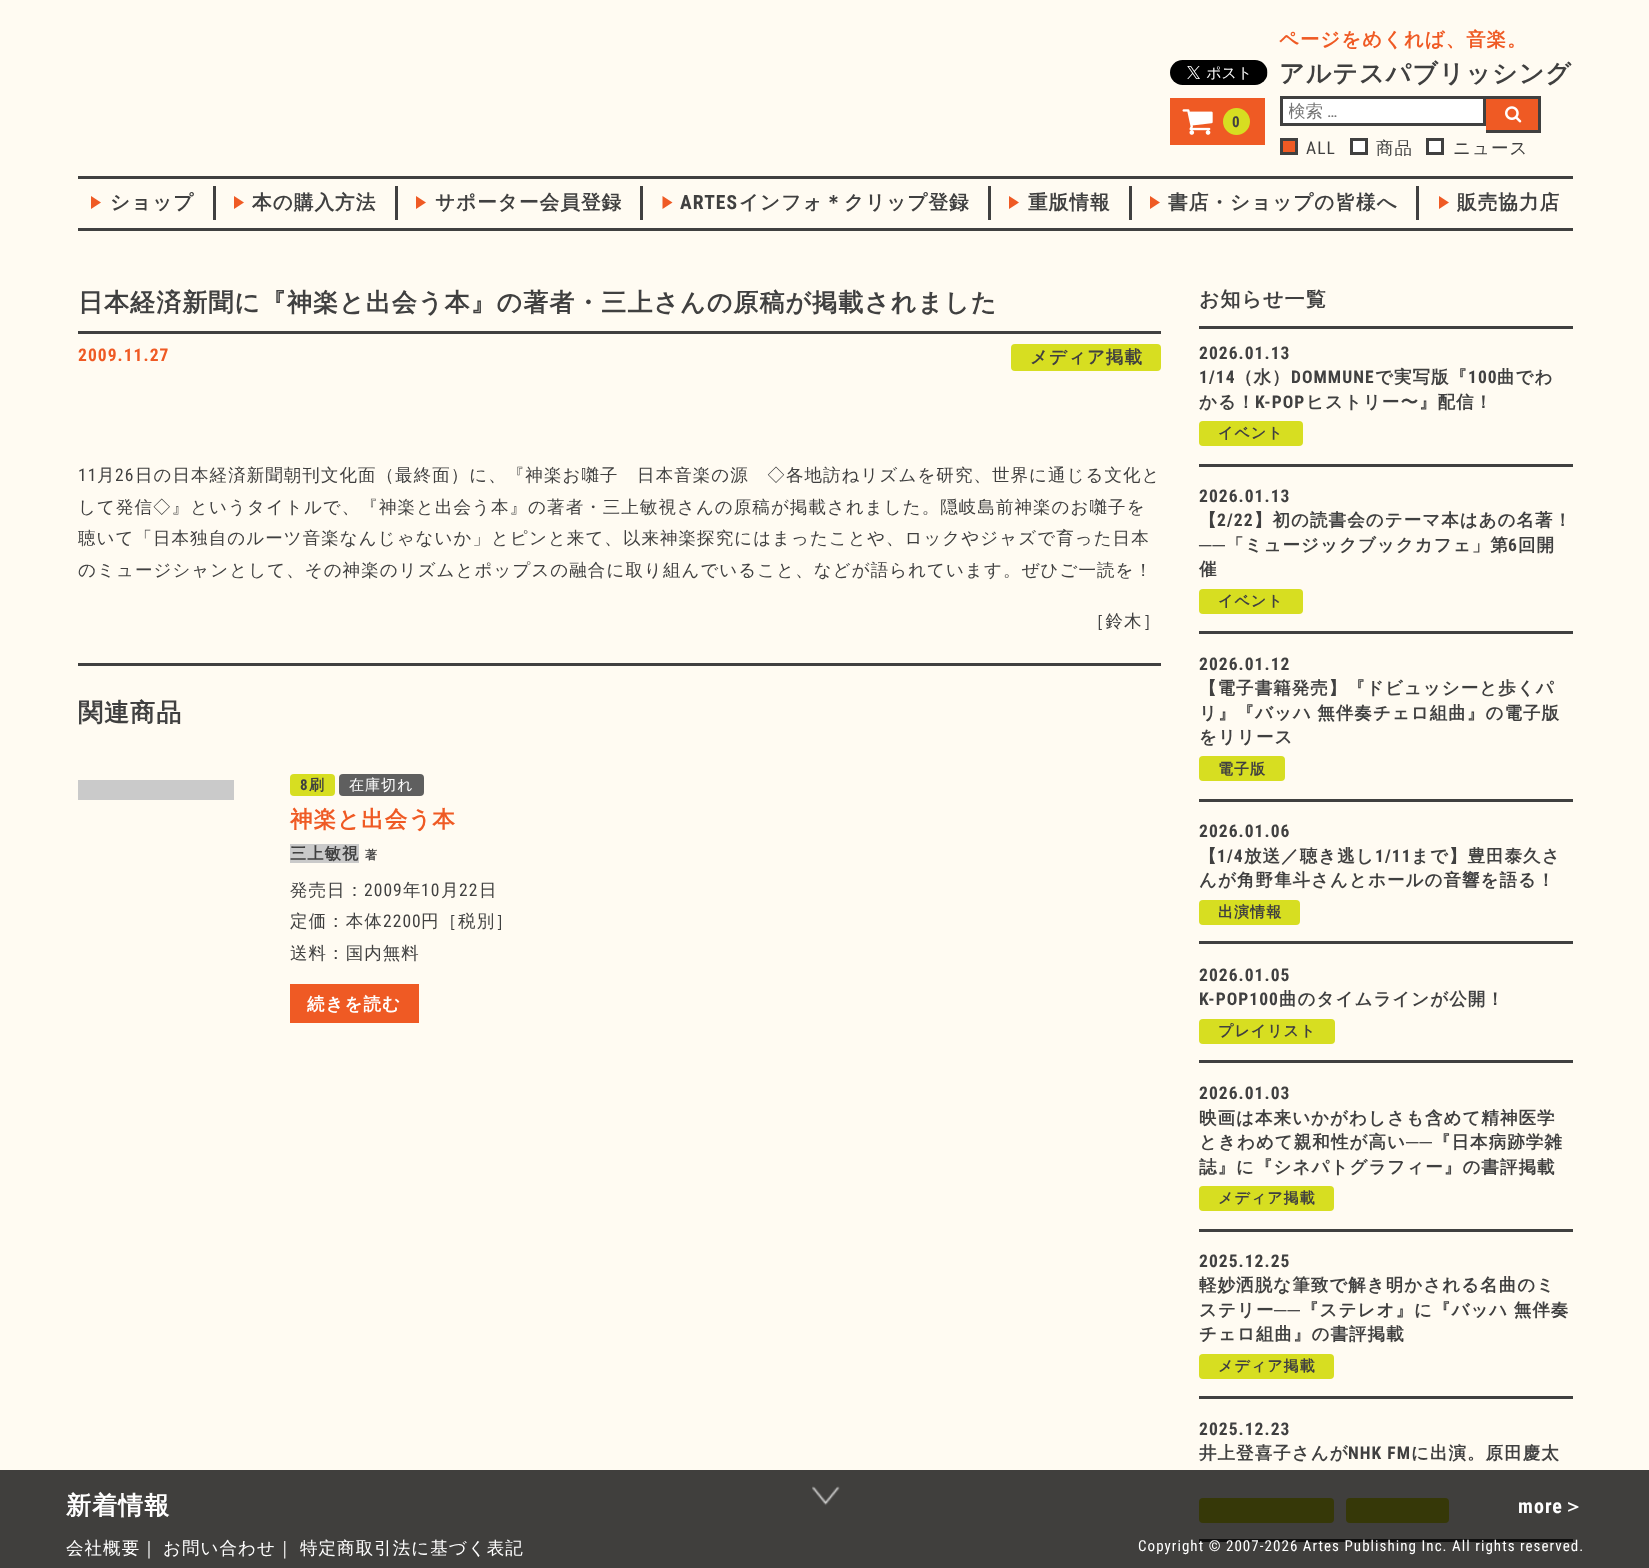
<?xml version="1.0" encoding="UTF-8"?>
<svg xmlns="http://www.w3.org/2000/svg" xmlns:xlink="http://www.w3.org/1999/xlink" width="1649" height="1568">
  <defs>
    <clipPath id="clip1"><rect x="1289" y="101" width="171" height="23" /></clipPath>
  </defs>
  <rect width="100%" height="100%" fill="#fffbf2" />
  <image x="1170" y="60" width="98" height="25" xlink:href="image1.png" />
  <rect x="1170" y="98" width="95" height="47" fill="#ef5a24" />
  <image x="1182" y="109" width="31" height="26" xlink:href="image2.png" />
  <circle cx="1236.5" cy="121.5" r="13.5" fill="#d7de21" />
  <rect x="1281.5" y="97.5" width="203" height="27" fill="#ffffff" stroke="#404040" stroke-width="3" />
  <rect x="1486" y="99" width="52" height="31" fill="#ef5a24" />
  <rect x="1486" y="96" width="54" height="3" fill="#404040" />
  <rect x="1538" y="96" width="3" height="37" fill="#404040" />
  <rect x="1486" y="130" width="54" height="3" fill="#404040" />
  <image x="1505" y="106" width="17" height="17" xlink:href="image3.png" />
  <rect x="1281.5" y="139.5" width="15" height="14" fill="#ef5a24" stroke="#404040" stroke-width="3" />
  <rect x="1351.5" y="139.5" width="15" height="14" fill="#ffffff" stroke="#404040" stroke-width="3" />
  <rect x="1427.5" y="139.5" width="15" height="14" fill="#ffffff" stroke="#404040" stroke-width="3" />
  <rect x="78" y="176" width="1495" height="3" fill="#404040" />
  <rect x="78" y="228" width="1495" height="3" fill="#404040" />
  <path d="M 91 209 v -13 l 10 6.5 z" fill="#ef5a24" />
  <rect x="213" y="186" width="3" height="34" fill="#404040" />
  <path d="M 234 209 v -13 l 10 6.5 z" fill="#ef5a24" />
  <rect x="395" y="186" width="3" height="34" fill="#404040" />
  <path d="M 416 209 v -13 l 10 6.5 z" fill="#ef5a24" />
  <rect x="640" y="186" width="3" height="34" fill="#404040" />
  <path d="M 662.5 209 v -13 l 10 6.5 z" fill="#ef5a24" />
  <rect x="988" y="186" width="3" height="34" fill="#404040" />
  <path d="M 1009 209 v -13 l 10 6.5 z" fill="#ef5a24" />
  <rect x="1129" y="186" width="3" height="34" fill="#404040" />
  <path d="M 1150 209 v -13 l 10 6.5 z" fill="#ef5a24" />
  <rect x="1416" y="186" width="3" height="34" fill="#404040" />
  <path d="M 1439 209 v -13 l 10 6.5 z" fill="#ef5a24" />
  <rect x="78" y="331" width="1083" height="3" fill="#404040" />
  <rect x="1011" y="344" width="150" height="27" rx="4" fill="#d7de21" />
  <rect x="78" y="663" width="1083" height="3" fill="#404040" />
  <rect x="78" y="780" width="156" height="20" fill="#cacaca" />
  <rect x="290" y="774" width="45" height="22" rx="4" fill="#d7de21" />
  <rect x="339" y="774" width="85" height="22" rx="4" fill="#5f5f5f" />
  <rect x="290" y="844" width="69" height="19" fill="#cacaca" />
  <rect x="290" y="984" width="129" height="39" fill="#ef5a24" />
  <rect x="1199" y="326" width="374" height="3" fill="#404040" />
  <rect x="1199" y="464" width="374" height="3" fill="#404040" />
  <rect x="1199" y="421" width="104" height="25" rx="4" fill="#d7de21" />
  <rect x="1199" y="631" width="374" height="3" fill="#404040" />
  <rect x="1199" y="589" width="104" height="25" rx="4" fill="#d7de21" />
  <rect x="1199" y="799" width="374" height="3" fill="#404040" />
  <rect x="1199" y="756" width="86" height="25" rx="4" fill="#d7de21" />
  <rect x="1199" y="941" width="374" height="3" fill="#404040" />
  <rect x="1199" y="900" width="101" height="25" rx="4" fill="#d7de21" />
  <rect x="1199" y="1060" width="374" height="3" fill="#404040" />
  <rect x="1199" y="1019" width="136" height="25" rx="4" fill="#d7de21" />
  <rect x="1199" y="1229" width="374" height="3" fill="#404040" />
  <rect x="1199" y="1186" width="135" height="25" rx="4" fill="#d7de21" />
  <rect x="1199" y="1396" width="374" height="3" fill="#404040" />
  <rect x="1199" y="1354" width="135" height="25" rx="4" fill="#d7de21" />
  <rect x="1199" y="1539" width="374" height="3" fill="#404040" />
  <rect x="1199" y="1498" width="135" height="25" rx="4" fill="#d7de21" />
  <rect x="1346" y="1498" width="103" height="25" rx="4" fill="#d7de21" />
  <rect y="1470" width="1649" height="98" fill="#000000" fill-opacity="0.75" />
  <image x="812" y="1486" width="28" height="20" xlink:href="image4.png" />
  <text x="1232" y="127" style="font-family: Roboto Condensed; font-size: 15px; font-weight: bold; letter-spacing: 1.05px; fill: #404040">0</text>
  <text x="1279" y="46" style="font-family: WenQuanYi Zen Hei; font-size: 19.4px; font-weight: bold; letter-spacing: 1.05px; fill: #ef5a24">ページをめくれば、音楽。</text>
  <text x="1279" y="82" style="font-family: WenQuanYi Zen Hei; font-size: 25px; font-weight: bold; letter-spacing: 1.05px; fill: #404040">アルテスパブリッシング</text>
  <g clip-path="url(#clip1)">
    <text x="1288" y="117" style="font-family: WenQuanYi Zen Hei; font-size: 17.5px; font-weight: 500; fill: #757575">検索</text>
  </g>
  <text x="1327" y="117" style="font-family: Roboto Condensed; font-size: 17.5px; fill: #757575">…</text>
  <text x="1306" y="154" style="font-family: Roboto Condensed; font-size: 17.5px; letter-spacing: 1.05px; fill: #404040">ALL</text>
  <text x="1376" y="154" style="font-family: WenQuanYi Zen Hei; font-size: 17.5px; font-weight: 500; letter-spacing: 1.05px; fill: #404040">商品</text>
  <text x="1453" y="154" style="font-family: WenQuanYi Zen Hei; font-size: 17.5px; font-weight: 500; letter-spacing: 1.05px; fill: #404040">ニュース</text>
  <text x="110" y="209" style="font-family: WenQuanYi Zen Hei; font-size: 19.6px; font-weight: bold; letter-spacing: 1.05px; fill: #404040">ショップ</text>
  <text x="252" y="209" style="font-family: WenQuanYi Zen Hei; font-size: 19.6px; font-weight: bold; letter-spacing: 1.05px; fill: #404040">本の購入方法</text>
  <text x="435" y="209" style="font-family: WenQuanYi Zen Hei; font-size: 19.6px; font-weight: bold; letter-spacing: 1.05px; fill: #404040">サポーター会員登録</text>
  <text x="680" y="209" style="font-family: Roboto Condensed; font-size: 19.6px; font-weight: bold; letter-spacing: 1.05px; fill: #404040">ARTES</text>
  <text x="739" y="209" style="font-family: WenQuanYi Zen Hei; font-size: 19.6px; font-weight: bold; letter-spacing: 1.05px; fill: #404040">インフォ＊クリップ登録</text>
  <text x="1028" y="209" style="font-family: WenQuanYi Zen Hei; font-size: 19.6px; font-weight: bold; letter-spacing: 1.05px; fill: #404040">重版情報</text>
  <text x="1168" y="209" style="font-family: WenQuanYi Zen Hei; font-size: 19.6px; font-weight: bold; letter-spacing: 1.05px; fill: #404040">書店・ショップの皆様へ</text>
  <text x="1457" y="209" style="font-family: WenQuanYi Zen Hei; font-size: 19.6px; font-weight: bold; letter-spacing: 1.05px; fill: #404040">販売協力店</text>
  <text x="78" y="311" style="font-family: WenQuanYi Zen Hei; font-size: 25px; font-weight: bold; letter-spacing: 1.05px; fill: #404040">日本経済新聞に『神楽と出会う本』の著者・三上さんの原稿が掲載されました</text>
  <text x="78" y="361" style="font-family: Roboto Condensed; font-size: 17.5px; font-weight: bold; letter-spacing: 1.05px; fill: #ef5a24">2009.11.27</text>
  <text x="1030" y="363" style="font-family: WenQuanYi Zen Hei; font-size: 17.5px; font-weight: bold; letter-spacing: 1.05px; fill: #404040">メディア掲載</text>
  <text x="78" y="481" style="font-family: Roboto Condensed; font-size: 17.5px; letter-spacing: 1.05px; fill: #404040">11</text>
  <text x="97" y="481" style="font-family: WenQuanYi Zen Hei; font-size: 17.5px; font-weight: 500; letter-spacing: 1.05px; fill: #404040">月</text>
  <text x="115" y="481" style="font-family: Roboto Condensed; font-size: 17.5px; letter-spacing: 1.05px; fill: #404040">26</text>
  <text x="135" y="481" style="font-family: WenQuanYi Zen Hei; font-size: 17.5px; font-weight: 500; letter-spacing: 1.05px; fill: #404040">日の日本経済新聞朝刊文化面（最終面）に、『神楽お囃子　日本音楽の源　◇各地訪ねリズムを研究、世界に通じる文化と</text>
  <text x="78" y="513" style="font-family: WenQuanYi Zen Hei; font-size: 17.5px; font-weight: 500; letter-spacing: 1.05px; fill: #404040">して発信◇』というタイトルで、『神楽と出会う本』の著者・三上敏視さんの原稿が掲載されました。隠岐島前神楽のお囃子を</text>
  <text x="78" y="544" style="font-family: WenQuanYi Zen Hei; font-size: 17.5px; font-weight: 500; letter-spacing: 1.05px; fill: #404040">聴いて「日本独自のルーツ音楽なんじゃないか」とピンと来て、以来神楽探究にはまったことや、ロックやジャズで育った日本</text>
  <text x="78" y="576" style="font-family: WenQuanYi Zen Hei; font-size: 17.5px; font-weight: 500; letter-spacing: 1.05px; fill: #404040">のミュージシャンとして、その神楽のリズムとポップスの融合に取り組んでいること、などが語られています。ぜひご一読を！</text>
  <text x="1087" y="627" style="font-family: WenQuanYi Zen Hei; font-size: 17.5px; font-weight: 500; letter-spacing: 1.05px; fill: #404040">［鈴木］</text>
  <text x="78" y="721" style="font-family: WenQuanYi Zen Hei; font-size: 25px; font-weight: bold; letter-spacing: 1.05px; fill: #404040">関連商品</text>
  <text x="300" y="790" style="font-family: Roboto Condensed; font-size: 15px; font-weight: bold; letter-spacing: 1.05px; fill: #404040">8</text>
  <text x="309" y="790" style="font-family: WenQuanYi Zen Hei; font-size: 15px; font-weight: bold; letter-spacing: 1.05px; fill: #404040">刷</text>
  <text x="349" y="790" style="font-family: WenQuanYi Zen Hei; font-size: 15px; font-weight: 500; letter-spacing: 1.05px; fill: #ffffff">在庫切れ</text>
  <text x="290" y="827" style="font-family: WenQuanYi Zen Hei; font-size: 22.5px; font-weight: bold; letter-spacing: 1.05px; fill: #ef5a24">神楽と出会う本</text>
  <text x="290" y="859" style="font-family: WenQuanYi Zen Hei; font-size: 16.25px; font-weight: bold; letter-spacing: 1.05px; fill: #404040">三上敏視</text>
  <text x="365" y="859" style="font-family: WenQuanYi Zen Hei; font-size: 12px; font-weight: bold; letter-spacing: 1.05px; fill: #404040">著</text>
  <text x="290" y="896" style="font-family: WenQuanYi Zen Hei; font-size: 17.5px; font-weight: 500; letter-spacing: 1.05px; fill: #404040">発売日：</text>
  <text x="364" y="896" style="font-family: Roboto Condensed; font-size: 17.5px; letter-spacing: 1.05px; fill: #404040">2009</text>
  <text x="403" y="896" style="font-family: WenQuanYi Zen Hei; font-size: 17.5px; font-weight: 500; letter-spacing: 1.05px; fill: #404040">年</text>
  <text x="421" y="896" style="font-family: Roboto Condensed; font-size: 17.5px; letter-spacing: 1.05px; fill: #404040">10</text>
  <text x="441" y="896" style="font-family: WenQuanYi Zen Hei; font-size: 17.5px; font-weight: 500; letter-spacing: 1.05px; fill: #404040">月</text>
  <text x="459" y="896" style="font-family: Roboto Condensed; font-size: 17.5px; letter-spacing: 1.05px; fill: #404040">22</text>
  <text x="479" y="896" style="font-family: WenQuanYi Zen Hei; font-size: 17.5px; font-weight: 500; letter-spacing: 1.05px; fill: #404040">日</text>
  <text x="290" y="927" style="font-family: WenQuanYi Zen Hei; font-size: 17.5px; font-weight: 500; letter-spacing: 1.05px; fill: #404040">定価：本体</text>
  <text x="383" y="927" style="font-family: Roboto Condensed; font-size: 17.5px; letter-spacing: 1.05px; fill: #404040">2200</text>
  <text x="421" y="927" style="font-family: WenQuanYi Zen Hei; font-size: 17.5px; font-weight: 500; letter-spacing: 1.05px; fill: #404040">円［税別］</text>
  <text x="290" y="959" style="font-family: WenQuanYi Zen Hei; font-size: 17.5px; font-weight: 500; letter-spacing: 1.05px; fill: #404040">送料：国内無料</text>
  <text x="307" y="1010" style="font-family: WenQuanYi Zen Hei; font-size: 17.5px; font-weight: bold; letter-spacing: 1.05px; fill: #ffffff">続きを読む</text>
  <text x="1199" y="306" style="font-family: WenQuanYi Zen Hei; font-size: 20px; font-weight: bold; letter-spacing: 1.05px; fill: #404040">お知らせ一覧</text>
  <text x="1199" y="359" style="font-family: Roboto Condensed; font-size: 17.5px; font-weight: bold; letter-spacing: 1.05px; fill: #404040">2026.01.13</text>
  <text x="1199" y="383" style="font-family: Roboto Condensed; font-size: 17.5px; font-weight: bold; letter-spacing: 1.05px; fill: #404040">1/14</text>
  <text x="1235" y="383" style="font-family: WenQuanYi Zen Hei; font-size: 17.5px; font-weight: bold; letter-spacing: 1.05px; fill: #404040">（水）</text>
  <text x="1291" y="383" style="font-family: Roboto Condensed; font-size: 17.5px; font-weight: bold; letter-spacing: 1.05px; fill: #404040">DOMMUNE</text>
  <text x="1375" y="383" style="font-family: WenQuanYi Zen Hei; font-size: 17.5px; font-weight: bold; letter-spacing: 1.05px; fill: #404040">で実写版『</text>
  <text x="1468" y="383" style="font-family: Roboto Condensed; font-size: 17.5px; font-weight: bold; letter-spacing: 1.05px; fill: #404040">100</text>
  <text x="1497" y="383" style="font-family: WenQuanYi Zen Hei; font-size: 17.5px; font-weight: bold; letter-spacing: 1.05px; fill: #404040">曲でわ</text>
  <text x="1199" y="408" style="font-family: WenQuanYi Zen Hei; font-size: 17.5px; font-weight: bold; letter-spacing: 1.05px; fill: #404040">かる！</text>
  <text x="1255" y="408" style="font-family: Roboto Condensed; font-size: 17.5px; font-weight: bold; letter-spacing: 1.05px; fill: #404040">K-POP</text>
  <text x="1306" y="408" style="font-family: WenQuanYi Zen Hei; font-size: 17.5px; font-weight: bold; letter-spacing: 1.05px; fill: #404040">ヒストリー〜』配信！</text>
  <text x="1218" y="438" style="font-family: WenQuanYi Zen Hei; font-size: 15px; font-weight: bold; letter-spacing: 1.05px; fill: #404040">イベント</text>
  <text x="1199" y="502" style="font-family: Roboto Condensed; font-size: 17.5px; font-weight: bold; letter-spacing: 1.05px; fill: #404040">2026.01.13</text>
  <text x="1199" y="526" style="font-family: WenQuanYi Zen Hei; font-size: 17.5px; font-weight: bold; letter-spacing: 1.05px; fill: #404040">【</text>
  <text x="1217" y="526" style="font-family: Roboto Condensed; font-size: 17.5px; font-weight: bold; letter-spacing: 1.05px; fill: #404040">2/22</text>
  <text x="1254" y="526" style="font-family: WenQuanYi Zen Hei; font-size: 17.5px; font-weight: bold; letter-spacing: 1.05px; fill: #404040">】初の読書会のテーマ本はあの名著！</text>
  <text x="1199" y="551" style="font-family: Liberation Sans; font-size: 17.5px; font-weight: bold; letter-spacing: 1.05px; fill: #404040">──</text>
  <text x="1226" y="551" style="font-family: WenQuanYi Zen Hei; font-size: 17.5px; font-weight: bold; letter-spacing: 1.05px; fill: #404040">「ミュージックブックカフェ」第</text>
  <text x="1508" y="551" style="font-family: Roboto Condensed; font-size: 17.5px; font-weight: bold; letter-spacing: 1.05px; fill: #404040">6</text>
  <text x="1518" y="551" style="font-family: WenQuanYi Zen Hei; font-size: 17.5px; font-weight: bold; letter-spacing: 1.05px; fill: #404040">回開</text>
  <text x="1199" y="575" style="font-family: WenQuanYi Zen Hei; font-size: 17.5px; font-weight: bold; letter-spacing: 1.05px; fill: #404040">催</text>
  <text x="1218" y="606" style="font-family: WenQuanYi Zen Hei; font-size: 15px; font-weight: bold; letter-spacing: 1.05px; fill: #404040">イベント</text>
  <text x="1199" y="670" style="font-family: Roboto Condensed; font-size: 17.5px; font-weight: bold; letter-spacing: 1.05px; fill: #404040">2026.01.12</text>
  <text x="1199" y="694" style="font-family: WenQuanYi Zen Hei; font-size: 17.5px; font-weight: bold; letter-spacing: 1.05px; fill: #404040">【電子書籍発売】『ドビュッシーと歩くパ</text>
  <text x="1199" y="719" word-spacing="-1" style="font-family: WenQuanYi Zen Hei; font-size: 17.5px; font-weight: bold; letter-spacing: 1.05px; fill: #404040">リ』『バッハ 無伴奏チェロ組曲』の電子版</text>
  <text x="1199" y="743" style="font-family: WenQuanYi Zen Hei; font-size: 17.5px; font-weight: bold; letter-spacing: 1.05px; fill: #404040">をリリース</text>
  <text x="1218" y="774" style="font-family: WenQuanYi Zen Hei; font-size: 15px; font-weight: bold; letter-spacing: 1.05px; fill: #404040">電子版</text>
  <text x="1199" y="837" style="font-family: Roboto Condensed; font-size: 17.5px; font-weight: bold; letter-spacing: 1.05px; fill: #404040">2026.01.06</text>
  <text x="1199" y="862" style="font-family: WenQuanYi Zen Hei; font-size: 17.5px; font-weight: bold; letter-spacing: 1.05px; fill: #404040">【</text>
  <text x="1217" y="862" style="font-family: Roboto Condensed; font-size: 17.5px; font-weight: bold; letter-spacing: 1.05px; fill: #404040">1/4</text>
  <text x="1244" y="862" style="font-family: WenQuanYi Zen Hei; font-size: 17.5px; font-weight: bold; letter-spacing: 1.05px; fill: #404040">放送／聴き逃し</text>
  <text x="1375" y="862" style="font-family: Roboto Condensed; font-size: 17.5px; font-weight: bold; letter-spacing: 1.05px; fill: #404040">1/11</text>
  <text x="1411" y="862" style="font-family: WenQuanYi Zen Hei; font-size: 17.5px; font-weight: bold; letter-spacing: 1.05px; fill: #404040">まで】豊田泰久さ</text>
  <text x="1199" y="886" style="font-family: WenQuanYi Zen Hei; font-size: 17.5px; font-weight: bold; letter-spacing: 1.05px; fill: #404040">んが角野隼斗さんとホールの音響を語る！</text>
  <text x="1218" y="917" style="font-family: WenQuanYi Zen Hei; font-size: 15px; font-weight: bold; letter-spacing: 1.05px; fill: #404040">出演情報</text>
  <text x="1199" y="981" style="font-family: Roboto Condensed; font-size: 17.5px; font-weight: bold; letter-spacing: 1.05px; fill: #404040">2026.01.05</text>
  <text x="1199" y="1005" style="font-family: Roboto Condensed; font-size: 17.5px; font-weight: bold; letter-spacing: 1.05px; fill: #404040">K-POP100</text>
  <text x="1279" y="1005" style="font-family: WenQuanYi Zen Hei; font-size: 17.5px; font-weight: bold; letter-spacing: 1.05px; fill: #404040">曲のタイムラインが公開！</text>
  <text x="1218" y="1036" style="font-family: WenQuanYi Zen Hei; font-size: 15px; font-weight: bold; letter-spacing: 1.05px; fill: #404040">プレイリスト</text>
  <text x="1199" y="1099" style="font-family: Roboto Condensed; font-size: 17.5px; font-weight: bold; letter-spacing: 1.05px; fill: #404040">2026.01.03</text>
  <text x="1199" y="1124" style="font-family: WenQuanYi Zen Hei; font-size: 17.5px; font-weight: bold; letter-spacing: 1.05px; fill: #404040">映画は本来いかがわしさも含めて精神医学</text>
  <text x="1199" y="1148" style="font-family: WenQuanYi Zen Hei; font-size: 17.5px; font-weight: bold; letter-spacing: 1.05px; fill: #404040">ときわめて親和性が高い</text>
  <text x="1406" y="1148" style="font-family: Liberation Sans; font-size: 17.5px; font-weight: bold; letter-spacing: 1.05px; fill: #404040">──</text>
  <text x="1433" y="1148" style="font-family: WenQuanYi Zen Hei; font-size: 17.5px; font-weight: bold; letter-spacing: 1.05px; fill: #404040">『日本病跡学雑</text>
  <text x="1199" y="1173" style="font-family: WenQuanYi Zen Hei; font-size: 17.5px; font-weight: bold; letter-spacing: 1.05px; fill: #404040">誌』に『シネパトグラフィー』の書評掲載</text>
  <text x="1218" y="1203" style="font-family: WenQuanYi Zen Hei; font-size: 15px; font-weight: bold; letter-spacing: 1.05px; fill: #404040">メディア掲載</text>
  <text x="1199" y="1267" style="font-family: Roboto Condensed; font-size: 17.5px; font-weight: bold; letter-spacing: 1.05px; fill: #404040">2025.12.25</text>
  <text x="1199" y="1291" style="font-family: WenQuanYi Zen Hei; font-size: 17.5px; font-weight: bold; letter-spacing: 1.05px; fill: #404040">軽妙洒脱な筆致で解き明かされる名曲のミ</text>
  <text x="1199" y="1316" style="font-family: WenQuanYi Zen Hei; font-size: 17.5px; font-weight: bold; letter-spacing: 1.05px; fill: #404040">ステリー</text>
  <text x="1274" y="1316" style="font-family: Liberation Sans; font-size: 17.5px; font-weight: bold; letter-spacing: 1.05px; fill: #404040">──</text>
  <text x="1301" y="1316" word-spacing="-1" style="font-family: WenQuanYi Zen Hei; font-size: 17.5px; font-weight: bold; letter-spacing: 1.05px; fill: #404040">『ステレオ』に『バッハ 無伴奏</text>
  <text x="1199" y="1340" style="font-family: WenQuanYi Zen Hei; font-size: 17.5px; font-weight: bold; letter-spacing: 1.05px; fill: #404040">チェロ組曲』の書評掲載</text>
  <text x="1218" y="1371" style="font-family: WenQuanYi Zen Hei; font-size: 15px; font-weight: bold; letter-spacing: 1.05px; fill: #404040">メディア掲載</text>
  <text x="1199" y="1435" style="font-family: Roboto Condensed; font-size: 17.5px; font-weight: bold; letter-spacing: 1.05px; fill: #404040">2025.12.23</text>
  <text x="1199" y="1459" style="font-family: WenQuanYi Zen Hei; font-size: 17.5px; font-weight: bold; letter-spacing: 1.05px; fill: #404040">井上登喜子さんが</text>
  <text x="1348" y="1459" style="font-family: Roboto Condensed; font-size: 17.5px; font-weight: bold; letter-spacing: 1.05px; fill: #404040">NHK FM</text>
  <text x="1411" y="1459" style="font-family: WenQuanYi Zen Hei; font-size: 17.5px; font-weight: bold; letter-spacing: 1.05px; fill: #404040">に出演。原田慶太</text>
  <text x="66" y="1514" style="font-family: WenQuanYi Zen Hei; font-size: 25px; font-weight: bold; letter-spacing: 1.05px; fill: #ffffff">新着情報</text>
  <text x="1518" y="1513" style="font-family: Roboto Condensed; font-size: 20px; font-weight: bold; letter-spacing: 1.05px; fill: #ffffff">more</text>
  <text x="1563" y="1513" style="font-family: WenQuanYi Zen Hei; font-size: 20px; font-weight: bold; letter-spacing: 1.05px; fill: #ffffff">＞</text>
  <text x="66" y="1554" style="font-family: WenQuanYi Zen Hei; font-size: 17.5px; font-weight: 500; letter-spacing: 1.05px; fill: #ffffff">会社概要｜</text>
  <text x="163" y="1554" style="font-family: WenQuanYi Zen Hei; font-size: 17.5px; font-weight: 500; letter-spacing: 1.05px; fill: #ffffff">お問い合わせ｜</text>
  <text x="300" y="1554" style="font-family: WenQuanYi Zen Hei; font-size: 17.5px; font-weight: 500; letter-spacing: 1.05px; fill: #ffffff">特定商取引法に基づく表記</text>
  <text x="1138" y="1551" style="font-family: Roboto Condensed; font-size: 15px; letter-spacing: 1.05px; fill: #ffffff">Copyright © 2007-2026 Artes Publishing Inc. All rights reserved.</text>
</svg>
